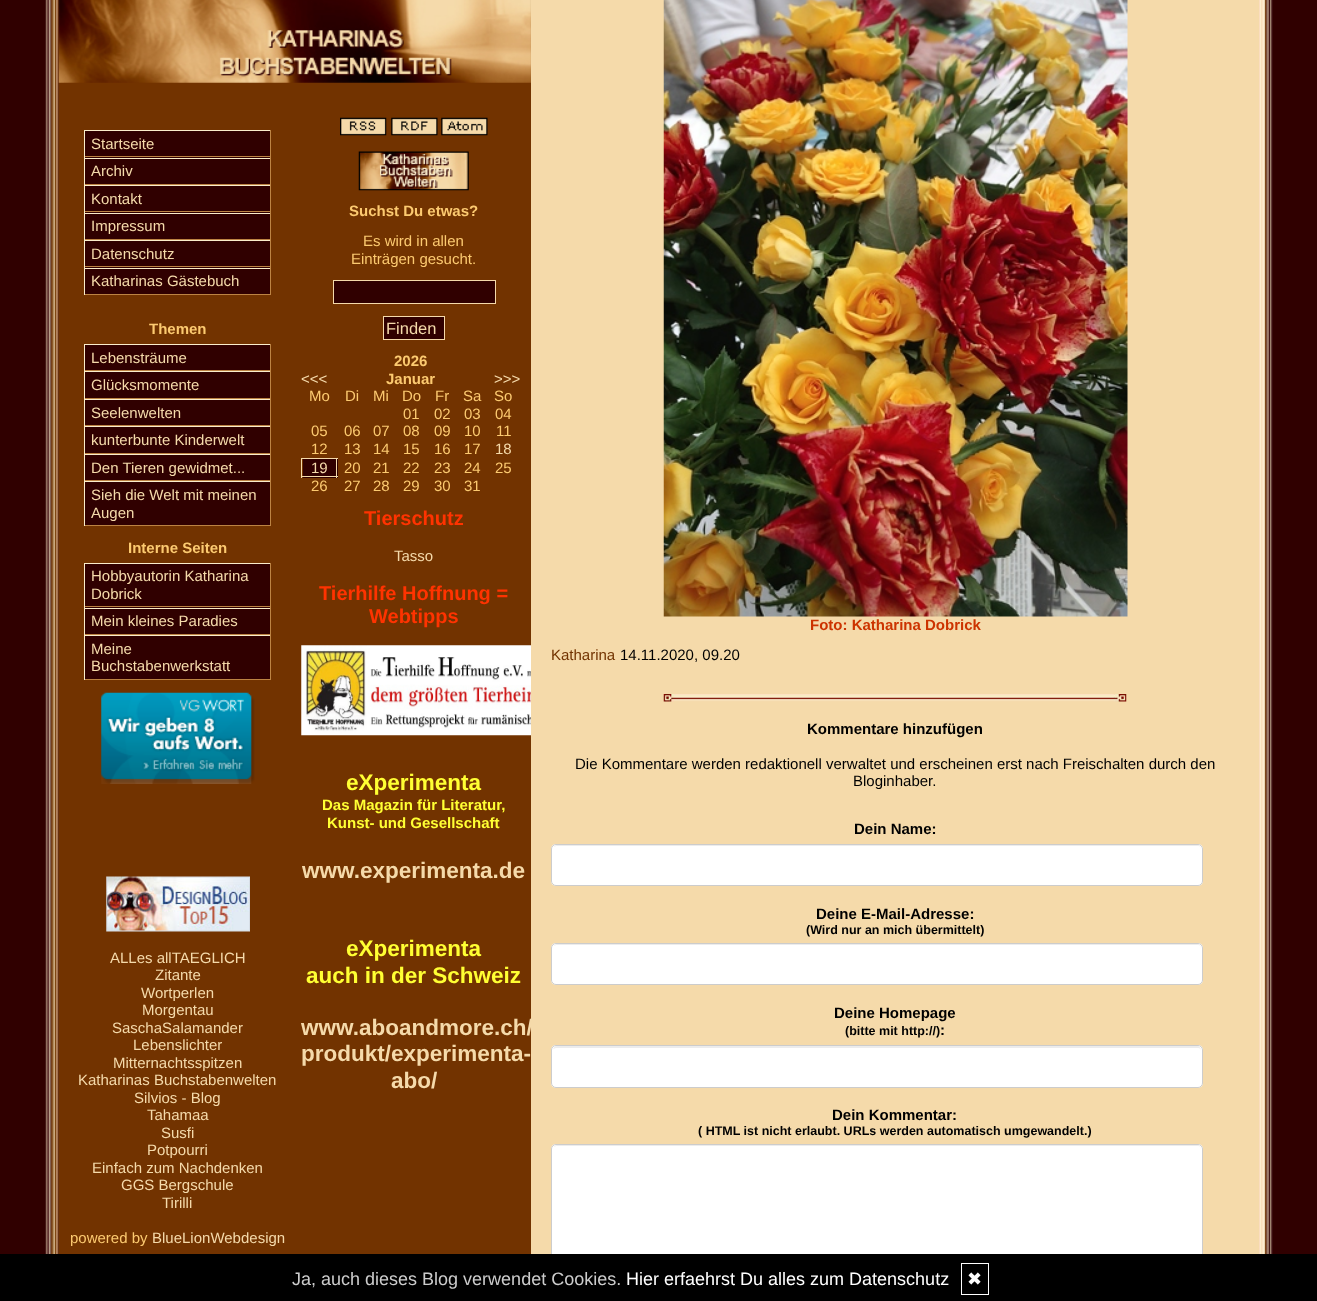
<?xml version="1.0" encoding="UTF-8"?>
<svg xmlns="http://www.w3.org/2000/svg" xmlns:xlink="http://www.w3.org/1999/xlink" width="1317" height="1301">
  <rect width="100%" height="100%" fill="#300000" />
  <image x="45" y="0" width="1228" height="1254" xlink:href="image1.png" />
  <rect x="59" y="82" width="472" height="1172" fill="#723300" />
  <image x="58" y="0" width="237" height="83" xlink:href="image2.png" />
  <rect x="85" y="131" width="185" height="27" fill="#300000" />
  <rect x="84" y="130" width="187" height="1" fill="#fbedcb" />
  <rect x="270" y="130" width="1" height="28" fill="#bc8343" />
  <rect x="84" y="156" width="187" height="1" fill="#bc8343" />
  <rect x="84" y="130" width="1" height="28" fill="#fbedcb" />
  <rect x="85" y="159" width="185" height="25" fill="#300000" />
  <rect x="84" y="158" width="187" height="1" fill="#fbedcb" />
  <rect x="270" y="158" width="1" height="27" fill="#bc8343" />
  <rect x="84" y="184" width="187" height="1" fill="#bc8343" />
  <rect x="84" y="158" width="1" height="27" fill="#fbedcb" />
  <rect x="85" y="186" width="185" height="27" fill="#300000" />
  <rect x="84" y="185" width="187" height="1" fill="#fbedcb" />
  <rect x="270" y="185" width="1" height="28" fill="#bc8343" />
  <rect x="84" y="211" width="187" height="1" fill="#bc8343" />
  <rect x="84" y="185" width="1" height="28" fill="#fbedcb" />
  <rect x="85" y="214" width="185" height="25" fill="#300000" />
  <rect x="84" y="213" width="187" height="1" fill="#fbedcb" />
  <rect x="270" y="213" width="1" height="27" fill="#bc8343" />
  <rect x="84" y="239" width="187" height="1" fill="#bc8343" />
  <rect x="84" y="213" width="1" height="27" fill="#fbedcb" />
  <rect x="85" y="241" width="185" height="27" fill="#300000" />
  <rect x="84" y="240" width="187" height="1" fill="#fbedcb" />
  <rect x="270" y="240" width="1" height="28" fill="#bc8343" />
  <rect x="84" y="266" width="187" height="1" fill="#bc8343" />
  <rect x="84" y="240" width="1" height="28" fill="#fbedcb" />
  <rect x="85" y="269" width="185" height="25" fill="#300000" />
  <rect x="84" y="268" width="187" height="1" fill="#fbedcb" />
  <rect x="270" y="268" width="1" height="27" fill="#bc8343" />
  <rect x="84" y="294" width="187" height="1" fill="#bc8343" />
  <rect x="84" y="268" width="1" height="27" fill="#fbedcb" />
  <rect x="85" y="345" width="185" height="25" fill="#300000" />
  <rect x="84" y="344" width="187" height="1" fill="#fbedcb" />
  <rect x="270" y="344" width="1" height="27" fill="#bc8343" />
  <rect x="84" y="370" width="187" height="1" fill="#bc8343" />
  <rect x="84" y="344" width="1" height="27" fill="#fbedcb" />
  <rect x="85" y="372" width="185" height="26" fill="#300000" />
  <rect x="84" y="371" width="187" height="1" fill="#fbedcb" />
  <rect x="270" y="371" width="1" height="28" fill="#bc8343" />
  <rect x="84" y="398" width="187" height="1" fill="#bc8343" />
  <rect x="84" y="371" width="1" height="28" fill="#fbedcb" />
  <rect x="85" y="400" width="185" height="25" fill="#300000" />
  <rect x="84" y="399" width="187" height="1" fill="#fbedcb" />
  <rect x="270" y="399" width="1" height="27" fill="#bc8343" />
  <rect x="84" y="425" width="187" height="1" fill="#bc8343" />
  <rect x="84" y="399" width="1" height="27" fill="#fbedcb" />
  <rect x="85" y="427" width="185" height="26" fill="#300000" />
  <rect x="84" y="426" width="187" height="1" fill="#fbedcb" />
  <rect x="270" y="426" width="1" height="28" fill="#bc8343" />
  <rect x="84" y="453" width="187" height="1" fill="#bc8343" />
  <rect x="84" y="426" width="1" height="28" fill="#fbedcb" />
  <rect x="85" y="455" width="185" height="25" fill="#300000" />
  <rect x="84" y="454" width="187" height="1" fill="#fbedcb" />
  <rect x="270" y="454" width="1" height="27" fill="#bc8343" />
  <rect x="84" y="480" width="187" height="1" fill="#bc8343" />
  <rect x="84" y="454" width="1" height="27" fill="#fbedcb" />
  <rect x="85" y="482" width="185" height="43" fill="#300000" />
  <rect x="84" y="481" width="187" height="1" fill="#fbedcb" />
  <rect x="270" y="481" width="1" height="45" fill="#bc8343" />
  <rect x="84" y="525" width="187" height="1" fill="#bc8343" />
  <rect x="84" y="481" width="1" height="45" fill="#fbedcb" />
  <rect x="85" y="564" width="185" height="44" fill="#300000" />
  <rect x="84" y="563" width="187" height="1" fill="#fbedcb" />
  <rect x="270" y="563" width="1" height="45" fill="#bc8343" />
  <rect x="84" y="606" width="187" height="1" fill="#bc8343" />
  <rect x="84" y="563" width="1" height="45" fill="#fbedcb" />
  <rect x="85" y="609" width="185" height="25" fill="#300000" />
  <rect x="84" y="608" width="187" height="1" fill="#fbedcb" />
  <rect x="270" y="608" width="1" height="27" fill="#bc8343" />
  <rect x="84" y="634" width="187" height="1" fill="#bc8343" />
  <rect x="84" y="608" width="1" height="27" fill="#fbedcb" />
  <rect x="85" y="636" width="185" height="43" fill="#300000" />
  <rect x="84" y="635" width="187" height="1" fill="#fbedcb" />
  <rect x="270" y="635" width="1" height="45" fill="#bc8343" />
  <rect x="84" y="679" width="187" height="1" fill="#bc8343" />
  <rect x="84" y="635" width="1" height="45" fill="#fbedcb" />
  <image x="101" y="692" width="154" height="92" xlink:href="image3.png" />
  <image x="106" y="876" width="144" height="56" xlink:href="image4.png" />
  <image x="295" y="0" width="236" height="83" xlink:href="image5.png" />
  <image x="340" y="117" width="47" height="19" xlink:href="image6.png" />
  <image x="391" y="117" width="47" height="19" xlink:href="image7.png" />
  <image x="441" y="117" width="47" height="19" xlink:href="image8.png" />
  <image x="358" y="151" width="111" height="40" xlink:href="image9.png" />
  <rect x="333.5" y="280.5" width="162" height="23" fill="#300000" stroke="#f5daaa" />
  <rect x="383.5" y="316.5" width="61" height="23" fill="#300000" stroke="#f5daaa" />
  <rect x="303" y="459" width="35" height="19" fill="#300000" />
  <rect x="301" y="458" width="37" height="1" fill="#f5daaa" />
  <rect x="336" y="458" width="1" height="20" fill="#f5daaa" />
  <rect x="301" y="476" width="37" height="1" fill="#f5daaa" />
  <rect x="301" y="458" width="1" height="20" fill="#f5daaa" />
  <image x="301" y="645" width="230" height="91" xlink:href="image10.png" />
  <rect x="531" width="728" height="1254" fill="#f5daaa" />
  <image x="663" y="694" width="464" height="8" xlink:href="image11.png" />
  <image x="663" y="0" width="465" height="617" xlink:href="image12.png" />
  <rect x="551" y="844" width="652" height="42" rx="5" fill="#ffffff" />
  <path d="M 556 846 h 642 c 2 0 3 2 3 4 v -1 c 0 -2 -2 -4 -4 -4 h -640 c -1 0 -3 1 -3 2 z" fill="#ececec" />
  <rect x="551.5" y="844.5" width="651" height="41" rx="4.5" fill="none" stroke="#cccccc" />
  <rect x="551" y="943" width="652" height="42" rx="5" fill="#ffffff" />
  <path d="M 556 945 h 642 c 2 0 3 2 3 4 v -1 c 0 -2 -2 -4 -4 -4 h -640 c -1 0 -3 1 -3 2 z" fill="#ececec" />
  <rect x="551.5" y="943.5" width="651" height="41" rx="4.5" fill="none" stroke="#cccccc" />
  <rect x="551" y="1045" width="652" height="43" rx="5" fill="#ffffff" />
  <path d="M 556 1048 h 642 c 2 0 3 1 3 3 v -1 c 0 -2 -2 -4 -4 -4 h -640 c -2 0 -3 1 -4 3 z" fill="#ececec" />
  <rect x="551.5" y="1045.5" width="651" height="42" rx="4.5" fill="none" stroke="#cccccc" />
  <rect x="551" y="1144" width="652" height="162" rx="5" fill="#ffffff" />
  <path d="M 556 1146 h 642 c 2 0 3 2 3 4 v -1 c 0 -2 -2 -4 -4 -4 h -640 c -1 0 -3 1 -3 2 z" fill="#ececec" />
  <rect x="551.5" y="1144.5" width="651" height="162" rx="4.5" fill="none" stroke="#cccccc" />
  <rect y="1255" width="1317" height="46" fill="#000000" />
  <rect x="-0.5" y="1254.5" width="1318" height="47" fill="none" stroke="#000000" />
  <rect x="961.5" y="1263.5" width="27" height="31" fill="none" stroke="#ffffff" />
  <text x="91" y="149" style="font-family: Liberation Sans; font-size: 15px; fill: #f5daaa">Startseite</text>
  <text x="91" y="176" style="font-family: Liberation Sans; font-size: 15px; fill: #f5daaa">Archiv</text>
  <text x="91" y="204" style="font-family: Liberation Sans; font-size: 15px; fill: #f5daaa">Kontakt</text>
  <text x="91" y="231" style="font-family: Liberation Sans; font-size: 15px; fill: #f5daaa">Impressum</text>
  <text x="91" y="259" style="font-family: Liberation Sans; font-size: 15px; fill: #f5daaa">Datenschutz</text>
  <text x="91" y="286" style="font-family: Liberation Sans; font-size: 15px; fill: #f5daaa">Katharinas Gästebuch</text>
  <text x="149" y="334" style="font-family: Liberation Sans; font-size: 15px; font-weight: bold; fill: #fcca70">Themen</text>
  <text x="91" y="363" style="font-family: Liberation Sans; font-size: 15px; fill: #f5daaa">Lebensträume</text>
  <text x="91" y="390" style="font-family: Liberation Sans; font-size: 15px; fill: #f5daaa">Glücksmomente</text>
  <text x="91" y="418" style="font-family: Liberation Sans; font-size: 15px; fill: #f5daaa">Seelenwelten</text>
  <text x="91" y="445" style="font-family: Liberation Sans; font-size: 15px; fill: #f5daaa">kunterbunte Kinderwelt</text>
  <text x="91" y="473" style="font-family: Liberation Sans; font-size: 15px; fill: #f5daaa">Den Tieren gewidmet...</text>
  <text x="91" y="500" style="font-family: Liberation Sans; font-size: 15px; fill: #f5daaa">Sieh die Welt mit meinen</text>
  <text x="91" y="518" style="font-family: Liberation Sans; font-size: 15px; fill: #f5daaa">Augen</text>
  <text x="128" y="553" style="font-family: Liberation Sans; font-size: 15px; font-weight: bold; fill: #fcca70">Interne Seiten</text>
  <text x="91" y="581" style="font-family: Liberation Sans; font-size: 15px; fill: #f5daaa">Hobbyautorin Katharina</text>
  <text x="91" y="599" style="font-family: Liberation Sans; font-size: 15px; fill: #f5daaa">Dobrick</text>
  <text x="91" y="626" style="font-family: Liberation Sans; font-size: 15px; fill: #f5daaa">Mein kleines Paradies</text>
  <text x="91" y="654" style="font-family: Liberation Sans; font-size: 15px; fill: #f5daaa">Meine</text>
  <text x="91" y="671" style="font-family: Liberation Sans; font-size: 15px; fill: #f5daaa">Buchstabenwerkstatt</text>
  <text x="110" y="963" style="font-family: Liberation Sans; font-size: 15px; fill: #f5daaa">ALLes allTAEGLICH</text>
  <text x="155" y="980" style="font-family: Liberation Sans; font-size: 15px; fill: #f5daaa">Zitante</text>
  <text x="141" y="998" style="font-family: Liberation Sans; font-size: 15px; fill: #f5daaa">Wortperlen</text>
  <text x="142" y="1015" style="font-family: Liberation Sans; font-size: 15px; fill: #f5daaa">Morgentau</text>
  <text x="112" y="1033" style="font-family: Liberation Sans; font-size: 15px; fill: #f5daaa">SaschaSalamander</text>
  <text x="133" y="1050" style="font-family: Liberation Sans; font-size: 15px; fill: #f5daaa">Lebenslichter</text>
  <text x="113" y="1068" style="font-family: Liberation Sans; font-size: 15px; fill: #f5daaa">Mitternachtsspitzen</text>
  <text x="78" y="1085" style="font-family: Liberation Sans; font-size: 15px; fill: #f5daaa">Katharinas Buchstabenwelten</text>
  <text x="134" y="1103" style="font-family: Liberation Sans; font-size: 15px; fill: #f5daaa">Silvios - Blog</text>
  <text x="147" y="1120" style="font-family: Liberation Sans; font-size: 15px; fill: #f5daaa">Tahamaa</text>
  <text x="161" y="1138" style="font-family: Liberation Sans; font-size: 15px; fill: #f5daaa">Susfi</text>
  <text x="147" y="1155" style="font-family: Liberation Sans; font-size: 15px; fill: #f5daaa">Potpourri</text>
  <text x="92" y="1173" style="font-family: Liberation Sans; font-size: 15px; fill: #f5daaa">Einfach zum Nachdenken</text>
  <text x="121" y="1190" style="font-family: Liberation Sans; font-size: 15px; fill: #f5daaa">GGS Bergschule</text>
  <text x="162" y="1208" style="font-family: Liberation Sans; font-size: 15px; fill: #f5daaa">Tirilli</text>
  <text x="70" y="1243" style="font-family: Liberation Sans; font-size: 15px; fill: #fcca70">powered by</text>
  <text x="152" y="1243" style="font-family: Liberation Sans; font-size: 15px; fill: #f5daaa">BlueLionWebdesign</text>
  <text x="349" y="216" style="font-family: Liberation Sans; font-size: 15px; font-weight: bold; fill: #fcca70">Suchst Du etwas?</text>
  <text x="363" y="246" style="font-family: Liberation Sans; font-size: 15px; fill: #fcca70">Es wird in allen</text>
  <text x="351" y="264" style="font-family: Liberation Sans; font-size: 15px; fill: #fcca70">Einträgen gesucht.</text>
  <text x="386" y="334" style="font-family: Liberation Sans; font-size: 16.5px; fill: #f5daaa">Finden</text>
  <text x="394" y="366" style="font-family: Liberation Sans; font-size: 15px; font-weight: bold; fill: #fcca70">2026</text>
  <text x="301" y="384" style="font-family: Liberation Sans; font-size: 15px; fill: #f5daaa">&lt;&lt;&lt;</text>
  <text x="386" y="384" style="font-family: Liberation Sans; font-size: 15px; font-weight: bold; fill: #fcca70">Januar</text>
  <text x="494" y="384" style="font-family: Liberation Sans; font-size: 15px; fill: #f5daaa">&gt;&gt;&gt;</text>
  <text x="309" y="401" style="font-family: Liberation Sans; font-size: 15px; fill: #fcca70">Mo</text>
  <text x="345" y="401" style="font-family: Liberation Sans; font-size: 15px; fill: #fcca70">Di</text>
  <text x="373" y="401" style="font-family: Liberation Sans; font-size: 15px; fill: #fcca70">Mi</text>
  <text x="402" y="401" style="font-family: Liberation Sans; font-size: 15px; fill: #fcca70">Do</text>
  <text x="435" y="401" style="font-family: Liberation Sans; font-size: 15px; fill: #fcca70">Fr</text>
  <text x="463" y="401" style="font-family: Liberation Sans; font-size: 15px; fill: #fcca70">Sa</text>
  <text x="494" y="401" style="font-family: Liberation Sans; font-size: 15px; fill: #fcca70">So</text>
  <text x="403" y="419" style="font-family: Liberation Sans; font-size: 15px; fill: #fcca70">01</text>
  <text x="434" y="419" style="font-family: Liberation Sans; font-size: 15px; fill: #fcca70">02</text>
  <text x="464" y="419" style="font-family: Liberation Sans; font-size: 15px; fill: #fcca70">03</text>
  <text x="495" y="419" style="font-family: Liberation Sans; font-size: 15px; fill: #fcca70">04</text>
  <text x="311" y="436" style="font-family: Liberation Sans; font-size: 15px; fill: #fcca70">05</text>
  <text x="344" y="436" style="font-family: Liberation Sans; font-size: 15px; fill: #fcca70">06</text>
  <text x="373" y="436" style="font-family: Liberation Sans; font-size: 15px; fill: #fcca70">07</text>
  <text x="403" y="436" style="font-family: Liberation Sans; font-size: 15px; fill: #fcca70">08</text>
  <text x="434" y="436" style="font-family: Liberation Sans; font-size: 15px; fill: #fcca70">09</text>
  <text x="464" y="436" style="font-family: Liberation Sans; font-size: 15px; fill: #fcca70">10</text>
  <text x="496" y="436" style="font-family: Liberation Sans; font-size: 15px; fill: #fcca70">11</text>
  <text x="311" y="454" style="font-family: Liberation Sans; font-size: 15px; fill: #fcca70">12</text>
  <text x="344" y="454" style="font-family: Liberation Sans; font-size: 15px; fill: #fcca70">13</text>
  <text x="373" y="454" style="font-family: Liberation Sans; font-size: 15px; fill: #fcca70">14</text>
  <text x="403" y="454" style="font-family: Liberation Sans; font-size: 15px; fill: #fcca70">15</text>
  <text x="434" y="454" style="font-family: Liberation Sans; font-size: 15px; fill: #fcca70">16</text>
  <text x="464" y="454" style="font-family: Liberation Sans; font-size: 15px; fill: #fcca70">17</text>
  <text x="495" y="454" style="font-family: Liberation Sans; font-size: 15px; fill: #f5daaa">18</text>
  <text x="311" y="473" style="font-family: Liberation Sans; font-size: 15px; fill: #f5daaa">19</text>
  <text x="344" y="473" style="font-family: Liberation Sans; font-size: 15px; fill: #fcca70">20</text>
  <text x="373" y="473" style="font-family: Liberation Sans; font-size: 15px; fill: #fcca70">21</text>
  <text x="403" y="473" style="font-family: Liberation Sans; font-size: 15px; fill: #fcca70">22</text>
  <text x="434" y="473" style="font-family: Liberation Sans; font-size: 15px; fill: #fcca70">23</text>
  <text x="464" y="473" style="font-family: Liberation Sans; font-size: 15px; fill: #fcca70">24</text>
  <text x="495" y="473" style="font-family: Liberation Sans; font-size: 15px; fill: #fcca70">25</text>
  <text x="311" y="491" style="font-family: Liberation Sans; font-size: 15px; fill: #fcca70">26</text>
  <text x="344" y="491" style="font-family: Liberation Sans; font-size: 15px; fill: #fcca70">27</text>
  <text x="373" y="491" style="font-family: Liberation Sans; font-size: 15px; fill: #fcca70">28</text>
  <text x="403" y="491" style="font-family: Liberation Sans; font-size: 15px; fill: #fcca70">29</text>
  <text x="434" y="491" style="font-family: Liberation Sans; font-size: 15px; fill: #fcca70">30</text>
  <text x="464" y="491" style="font-family: Liberation Sans; font-size: 15px; fill: #fcca70">31</text>
  <text x="364" y="525" style="font-family: Liberation Sans; font-size: 20px; font-weight: bold; fill: #ff3300">Tierschutz</text>
  <text x="394" y="561" style="font-family: Liberation Sans; font-size: 15px; fill: #f5daaa">Tasso</text>
  <text x="319" y="600" style="font-family: Liberation Sans; font-size: 20px; font-weight: bold; fill: #ff3300">Tierhilfe Hoffnung =</text>
  <text x="369" y="623" style="font-family: Liberation Sans; font-size: 20px; font-weight: bold; fill: #ff3300">Webtipps</text>
  <text x="346" y="790" style="font-family: Liberation Sans; font-size: 22.5px; font-weight: bold; fill: #ffff33">eXperimenta</text>
  <text x="322" y="810" style="font-family: Liberation Sans; font-size: 15px; font-weight: bold; fill: #ffff33">Das Magazin für Literatur,</text>
  <text x="327" y="828" style="font-family: Liberation Sans; font-size: 15px; font-weight: bold; fill: #ffff33">Kunst- und Gesellschaft</text>
  <text x="302" y="878" style="font-family: Liberation Sans; font-size: 22.5px; font-weight: bold; fill: #f5daaa">www.experimenta.de</text>
  <text x="346" y="956" style="font-family: Liberation Sans; font-size: 22.5px; font-weight: bold; fill: #ffff33">eXperimenta</text>
  <text x="306" y="983" style="font-family: Liberation Sans; font-size: 22.5px; font-weight: bold; fill: #ffff33">auch in der Schweiz</text>
  <text x="301" y="1035" style="font-family: Liberation Sans; font-size: 22.5px; font-weight: bold; fill: #f5daaa">www.aboandmore.ch/</text>
  <text x="301" y="1061" style="font-family: Liberation Sans; font-size: 22.5px; font-weight: bold; fill: #f5daaa">produkt/experimenta-</text>
  <text x="391" y="1088" style="font-family: Liberation Sans; font-size: 22.5px; font-weight: bold; fill: #f5daaa">abo/</text>
  <text x="810" y="630" style="font-family: Liberation Sans; font-size: 15px; font-weight: bold; fill: #cc3300">Foto: Katharina Dobrick</text>
  <text x="551" y="660" style="font-family: Liberation Sans; font-size: 15px; fill: #723300">Katharina</text>
  <text x="620" y="660" style="font-family: Liberation Sans; font-size: 15px; fill: #000000">14.11.2020, 09.20</text>
  <text x="807" y="734" style="font-family: Liberation Sans; font-size: 15px; font-weight: bold; fill: #000000">Kommentare hinzufügen</text>
  <text x="575" y="769" style="font-family: Liberation Sans; font-size: 15px; fill: #000000">Die Kommentare werden redaktionell verwaltet und erscheinen erst nach Freischalten durch den</text>
  <text x="853" y="786" style="font-family: Liberation Sans; font-size: 15px; fill: #000000">Bloginhaber.</text>
  <text x="854" y="834" style="font-family: Liberation Sans; font-size: 15px; font-weight: bold; fill: #000000">Dein Name:</text>
  <text x="816" y="919" style="font-family: Liberation Sans; font-size: 15px; font-weight: bold; fill: #000000">Deine E-Mail-Adresse:</text>
  <text x="806" y="934" style="font-family: Liberation Sans; font-size: 12.5px; font-weight: bold; fill: #000000">(Wird nur an mich übermittelt)</text>
  <text x="834" y="1018" style="font-family: Liberation Sans; font-size: 15px; font-weight: bold; fill: #000000">Deine Homepage</text>
  <text x="845" y="1035" style="font-family: Liberation Sans; font-size: 12.5px; font-weight: bold; fill: #000000">(bitte mit http://)</text>
  <text x="940" y="1035" style="font-family: Liberation Sans; font-size: 15px; font-weight: bold; fill: #000000">:</text>
  <text x="832" y="1120" style="font-family: Liberation Sans; font-size: 15px; font-weight: bold; fill: #000000">Dein Kommentar:</text>
  <text x="698" y="1135" style="font-family: Liberation Sans; font-size: 12.5px; font-weight: bold; fill: #000000">( HTML ist nicht erlaubt. URLs werden automatisch umgewandelt.)</text>
  <text x="292" y="1285" style="font-family: Liberation Sans; font-size: 18px; fill: #cccccc">Ja, auch dieses Blog verwendet Cookies.</text>
  <text x="626" y="1285" style="font-family: Liberation Sans; font-size: 18px; fill: #ffffff">Hier erfaehrst Du alles zum Datenschutz</text>
  <text x="967" y="1285" style="font-family: DejaVu Sans; font-size: 18px; fill: #ffffff">✖</text>
</svg>
